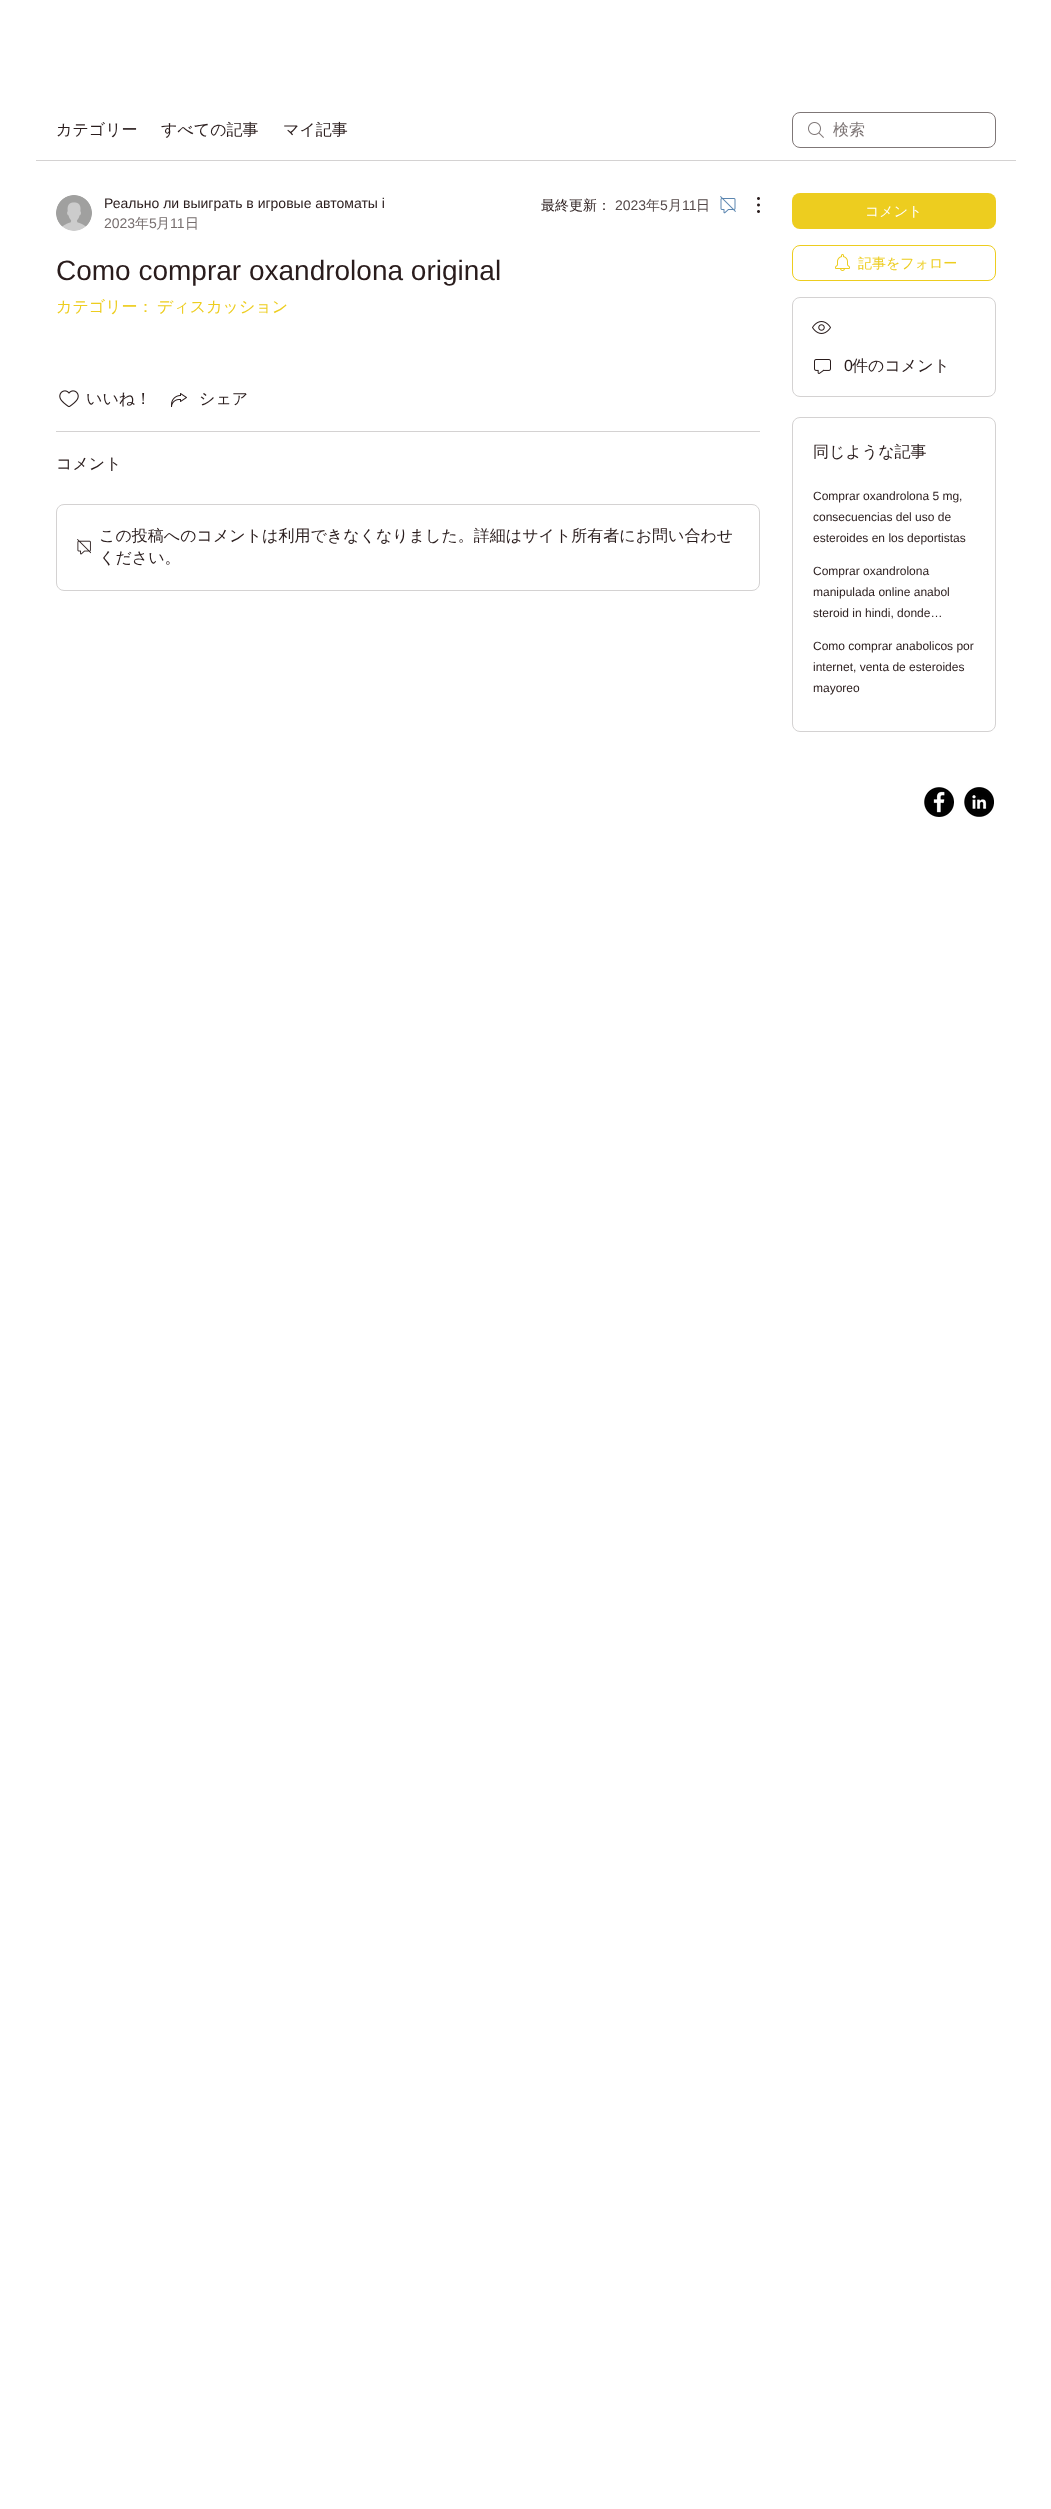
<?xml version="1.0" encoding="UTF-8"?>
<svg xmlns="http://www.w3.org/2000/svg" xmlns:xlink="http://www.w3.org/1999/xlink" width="1051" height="2509">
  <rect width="100%" height="100%" fill="#ffffff" />
  <rect x="36" y="160" width="980" height="1" fill="#d4d2d2" />
  <image x="808" y="122" width="16" height="16" xlink:href="image1.png" />
  <rect x="792.5" y="112.5" width="203" height="35" rx="7.5" fill="none" stroke="#7f7777" />
  <image x="56" y="195" width="36" height="36" xlink:href="image2.png" />
  <image x="720" y="196" width="16" height="18" xlink:href="image3.png" />
  <image x="757" y="197" width="3" height="16" xlink:href="image4.png" />
  <image x="59" y="390" width="20" height="18" xlink:href="image5.png" />
  <image x="171" y="393" width="16" height="14" xlink:href="image6.png" />
  <rect x="56" y="431" width="704" height="1" fill="#d4d2d2" />
  <rect x="56.5" y="504.5" width="703" height="86" rx="7.5" fill="none" stroke="#d4d2d2" />
  <image x="77" y="539" width="14" height="16" xlink:href="image7.png" />
  <rect x="792" y="193" width="204" height="36" rx="8" fill="#edcd1f" />
  <rect x="792.5" y="245.5" width="203" height="35" rx="7.5" fill="none" stroke="#edcd1f" />
  <image x="835" y="254" width="15" height="17" xlink:href="image8.png" />
  <rect x="792.5" y="297.5" width="203" height="99" rx="7.5" fill="none" stroke="#d4d2d2" />
  <image x="812" y="321" width="19" height="13" xlink:href="image9.png" />
  <image x="814" y="359" width="17" height="15" xlink:href="image10.png" />
  <rect x="792.5" y="417.5" width="203" height="314" rx="7.5" fill="none" stroke="#d4d2d2" />
  <image x="924" y="787" width="30" height="30" xlink:href="image11.png" />
  <image x="964" y="787" width="30" height="30" xlink:href="image12.png" />
  <text x="56" y="135" style="font-family: WenQuanYi Zen Hei; font-size: 16px; font-weight: 500; fill: #291c1c">カテゴリー</text>
  <text x="161" y="135" style="font-family: WenQuanYi Zen Hei; font-size: 16px; font-weight: 500; fill: #291c1c">すべての記事</text>
  <text x="283" y="135" style="font-family: WenQuanYi Zen Hei; font-size: 16px; font-weight: 500; fill: #291c1c">マイ記事</text>
  <text x="833" y="135" style="font-family: WenQuanYi Zen Hei; font-size: 16px; font-weight: 500; fill: #7f7777">検索</text>
  <text x="104" y="208" style="font-family: Liberation Sans; font-size: 14px; fill: #291c1c">Реально ли выиграть в игровые автоматы i</text>
  <text x="104" y="228" style="font-family: Liberation Sans; font-size: 14px; fill: #766e6e">2023</text>
  <text x="135" y="228" style="font-family: WenQuanYi Zen Hei; font-size: 14px; font-weight: 500; fill: #766e6e">年</text>
  <text x="149" y="228" style="font-family: Liberation Sans; font-size: 14px; fill: #766e6e">5</text>
  <text x="156" y="228" style="font-family: WenQuanYi Zen Hei; font-size: 14px; font-weight: 500; fill: #766e6e">月</text>
  <text x="170" y="228" style="font-family: Liberation Sans; font-size: 14px; fill: #766e6e">11</text>
  <text x="185" y="228" style="font-family: WenQuanYi Zen Hei; font-size: 14px; font-weight: 500; fill: #766e6e">日</text>
  <text x="541" y="210" style="font-family: WenQuanYi Zen Hei; font-size: 14px; font-weight: 500; fill: #291c1c">最終更新：</text>
  <text x="615" y="210" style="font-family: Liberation Sans; font-size: 14px; fill: #544949">2023</text>
  <text x="646" y="210" style="font-family: WenQuanYi Zen Hei; font-size: 14px; font-weight: 500; fill: #544949">年</text>
  <text x="660" y="210" style="font-family: Liberation Sans; font-size: 14px; fill: #544949">5</text>
  <text x="668" y="210" style="font-family: WenQuanYi Zen Hei; font-size: 14px; font-weight: 500; fill: #544949">月</text>
  <text x="682" y="210" style="font-family: Liberation Sans; font-size: 14px; fill: #544949">11</text>
  <text x="696" y="210" style="font-family: WenQuanYi Zen Hei; font-size: 14px; font-weight: 500; fill: #544949">日</text>
  <text x="56" y="280" style="font-family: Liberation Sans; font-size: 28px; fill: #291c1c">Como comprar oxandrolona original</text>
  <text x="56" y="312" style="font-family: WenQuanYi Zen Hei; font-size: 16px; font-weight: 500; fill: #edcd1f">カテゴリー：</text>
  <text x="157" y="312" style="font-family: WenQuanYi Zen Hei; font-size: 16px; font-weight: 500; fill: #edcd1f">ディスカッション</text>
  <text x="86" y="404" style="font-family: WenQuanYi Zen Hei; font-size: 16px; font-weight: 500; fill: #291c1c">いいね！</text>
  <text x="199" y="404" style="font-family: WenQuanYi Zen Hei; font-size: 16px; font-weight: 500; fill: #291c1c">シェア</text>
  <text x="56" y="469" style="font-family: WenQuanYi Zen Hei; font-size: 16px; font-weight: 500; fill: #291c1c">コメント</text>
  <text x="99" y="541" style="font-family: WenQuanYi Zen Hei; font-size: 16px; font-weight: 500; fill: #291c1c">この投稿へのコメントは利用できなくなりました。詳細はサイト所有者にお問い合わせ</text>
  <text x="99" y="563" style="font-family: WenQuanYi Zen Hei; font-size: 16px; font-weight: 500; fill: #291c1c">ください。</text>
  <text x="865" y="216" style="font-family: WenQuanYi Zen Hei; font-size: 14px; font-weight: 500; fill: #ffffff">コメント</text>
  <text x="858" y="268" style="font-family: WenQuanYi Zen Hei; font-size: 14px; font-weight: 500; fill: #edcd1f">記事をフォロー</text>
  <text x="844" y="371" style="font-family: Liberation Sans; font-size: 16px; fill: #291c1c">0</text>
  <text x="852" y="371" style="font-family: WenQuanYi Zen Hei; font-size: 16px; font-weight: 500; fill: #291c1c">件のコメント</text>
  <text x="813" y="457" style="font-family: WenQuanYi Zen Hei; font-size: 16px; font-weight: 500; fill: #291c1c">同じような記事</text>
  <text x="813" y="500" style="font-family: Liberation Sans; font-size: 12px; fill: #291c1c">Comprar oxandrolona 5 mg,</text>
  <text x="813" y="521" style="font-family: Liberation Sans; font-size: 12px; fill: #291c1c">consecuencias del uso de</text>
  <text x="813" y="542" style="font-family: Liberation Sans; font-size: 12px; fill: #291c1c">esteroides en los deportistas</text>
  <text x="813" y="575" style="font-family: Liberation Sans; font-size: 12px; fill: #291c1c">Comprar oxandrolona</text>
  <text x="813" y="596" style="font-family: Liberation Sans; font-size: 12px; fill: #291c1c">manipulada online anabol</text>
  <text x="813" y="617" style="font-family: Liberation Sans; font-size: 12px; fill: #291c1c">steroid in hindi, donde…</text>
  <text x="813" y="650" style="font-family: Liberation Sans; font-size: 12px; fill: #291c1c">Como comprar anabolicos por</text>
  <text x="813" y="671" style="font-family: Liberation Sans; font-size: 12px; fill: #291c1c">internet, venta de esteroides</text>
  <text x="813" y="692" style="font-family: Liberation Sans; font-size: 12px; fill: #291c1c">mayoreo</text>
</svg>
